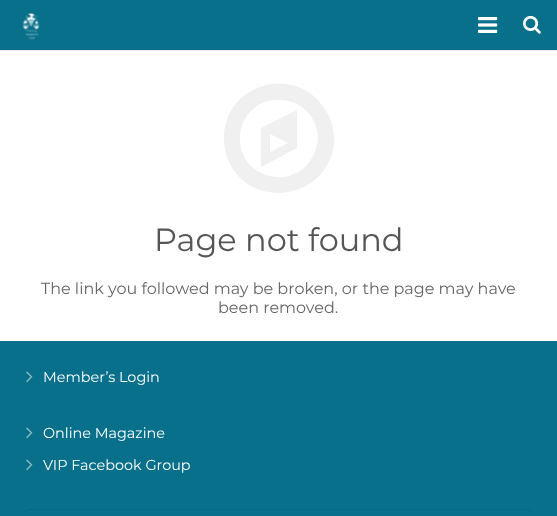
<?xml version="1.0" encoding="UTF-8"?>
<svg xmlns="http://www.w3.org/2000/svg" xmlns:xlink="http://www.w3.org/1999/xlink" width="557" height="516">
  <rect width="100%" height="100%" fill="#ffffff" />
  <rect y="50" width="557" height="1" fill="#ebebeb" />
  <rect width="557" height="50" fill="#08708a" />
  <image x="22" y="13" width="18" height="27" xlink:href="image1.png" />
  <image x="478" y="17" width="20" height="16" xlink:href="image2.png" />
  <image x="523" y="15" width="18" height="19" xlink:href="image3.png" />
  <path d="M 270 152 l 18 -9 l -18 -9 z m 27 -42 v 38 l -36 19 v -39 z m 15 48 c 4 -7 6 -15 6 -22 c -3 -38 -54 -50 -73 -17 c -4 6 -5 14 -5 22 c 2 38 53 50 72 17 z m 14 -47 c 6 9 8 20 8 31 c -4 54 -76 70 -103 24 c -5 -10 -8 -21 -7 -31 c 3 -54 75 -71 102 -24 z" fill="#f0f0f0" />
  <rect y="341" width="557" height="175" fill="#08708a" />
  <image x="26" y="371" width="7" height="11" xlink:href="image4.png" />
  <image x="26" y="427" width="7" height="11" xlink:href="image4.png" />
  <image x="26" y="459" width="7" height="11" xlink:href="image4.png" />
  <path d="M 29 510 h 499 c 3 0 5 2 5 5 v -1 c 0 -3 -2 -5 -5 -5 h -499 c -3 0 -5 2 -5 5 v 1 c 0 -3 2 -5 5 -5 z" fill="#07677f" />
  <text x="154" y="251" style="font-family: Montserrat; font-size: 32px; fill: #555555">Page not found</text>
  <text x="41" y="294" style="font-family: Montserrat; font-size: 16px; fill: #666666">The link you followed may be broken, or the page may have</text>
  <text x="218" y="313" style="font-family: Montserrat; font-size: 16px; fill: #666666">been removed.</text>
  <text x="43" y="382" style="font-family: Montserrat; font-size: 14.4px; fill: #ffffff">Member’s Login</text>
  <text x="43" y="438" style="font-family: Montserrat; font-size: 14.4px; fill: #ffffff">Online Magazine</text>
  <text x="43" y="470" style="font-family: Montserrat; font-size: 14.4px; fill: #ffffff">VIP Facebook Group</text>
</svg>
